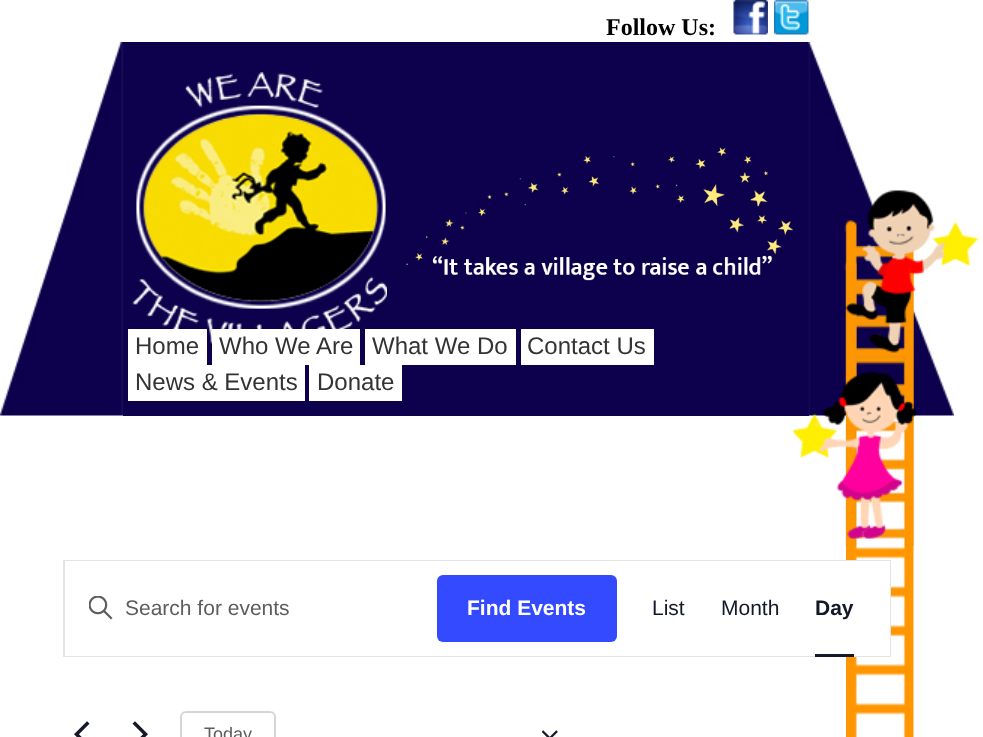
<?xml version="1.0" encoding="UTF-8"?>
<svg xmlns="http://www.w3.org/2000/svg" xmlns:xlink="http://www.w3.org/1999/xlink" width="983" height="737">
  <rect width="100%" height="100%" fill="#ffffff" />
  <image x="733" y="0" width="35" height="35" xlink:href="image1.png" />
  <image x="774" y="0" width="35" height="35" xlink:href="image2.png" />
  <image x="0" y="42" width="123" height="374" xlink:href="image3.png" />
  <rect x="123" y="42" width="686" height="374" fill="#0d014d" />
  <image x="132" y="72" width="255" height="272" xlink:href="image4.png" />
  <image x="397" y="147" width="396" height="134" xlink:href="image5.png" />
  <rect x="128" y="329" width="79" height="36" fill="#ffffff" />
  <rect x="212" y="329" width="148" height="36" fill="#ffffff" />
  <rect x="365" y="329" width="151" height="36" fill="#ffffff" />
  <rect x="521" y="329" width="133" height="36" fill="#ffffff" />
  <rect x="128" y="365" width="177" height="36" fill="#ffffff" />
  <rect x="309" y="365" width="93" height="36" fill="#ffffff" />
  <image x="846" y="415" width="68" height="322" xlink:href="image8.png" />
  <image x="808" y="42" width="146" height="374" xlink:href="image6.png" />
  <image x="793" y="190" width="187" height="356" xlink:href="image7.png" />
  <rect x="64" y="561" width="826" height="95" fill="none" stroke="#e4e4e4" stroke-width="2" />
  <rect x="65" y="561" width="825" height="95" fill="#ffffff" />
  <image x="89" y="596" width="24" height="24" xlink:href="image9.png" />
  <rect x="437" y="575" width="180" height="67" rx="6" fill="#334aff" />
  <rect x="815" y="654" width="39" height="3" fill="#141827" />
  <image x="74" y="721" width="16" height="16" xlink:href="image10.png" />
  <image x="132" y="721" width="16" height="16" xlink:href="image11.png" />
  <rect x="181" y="712" width="94" height="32" rx="5" fill="none" stroke="#d5d5d5" stroke-width="2" />
  <image x="542" y="730" width="16" height="7" xlink:href="image12.png" />
  <text x="606" y="35" style="font-family: Liberation Serif; font-size: 24px; font-weight: bold; fill: #000000">Follow Us:</text>
  <text x="135" y="354" style="font-family: Liberation Sans; font-size: 24px; fill: #333333">Home</text>
  <text x="219" y="354" style="font-family: Liberation Sans; font-size: 24px; fill: #333333">Who We Are</text>
  <text x="372" y="354" style="font-family: Liberation Sans; font-size: 24px; fill: #333333">What We Do</text>
  <text x="527" y="354" style="font-family: Liberation Sans; font-size: 24px; fill: #333333">Contact Us</text>
  <text x="135" y="390" style="font-family: Liberation Sans; font-size: 24px; fill: #333333">News &amp; Events</text>
  <text x="317" y="390" style="font-family: Liberation Sans; font-size: 24px; fill: #333333">Donate</text>
  <text x="125" y="615" style="font-family: Liberation Sans; font-size: 21px; fill: #5d5d5d">Search for events</text>
  <text x="467" y="615" style="font-family: Liberation Sans; font-size: 21px; font-weight: bold; fill: #ffffff">Find Events</text>
  <text x="652" y="615" style="font-family: Liberation Sans; font-size: 21px; fill: #141827">List</text>
  <text x="721" y="615" style="font-family: Liberation Sans; font-size: 21px; fill: #141827">Month</text>
  <text x="815" y="615" style="font-family: Liberation Sans; font-size: 21px; font-weight: bold; fill: #141827">Day</text>
  <text x="204" y="740" style="font-family: Liberation Sans; font-size: 18px; fill: #5d5d5d">Today</text>
</svg>
